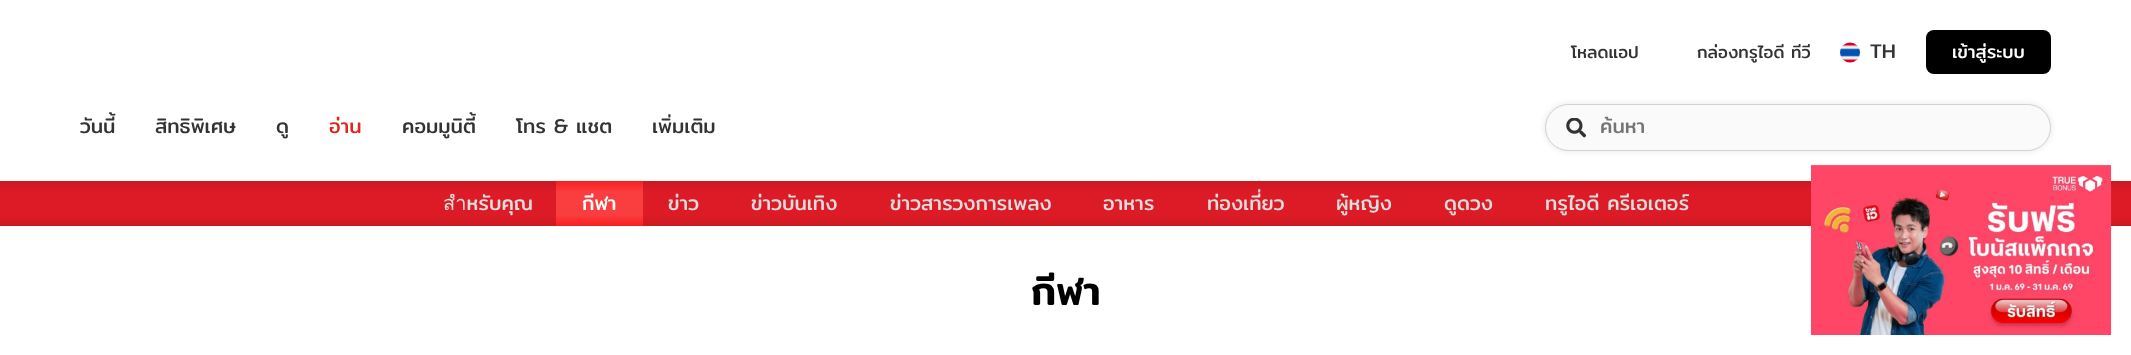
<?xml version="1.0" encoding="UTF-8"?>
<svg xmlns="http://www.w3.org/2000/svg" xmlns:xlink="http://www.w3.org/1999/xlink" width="2131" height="355">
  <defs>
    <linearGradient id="g1" gradientUnits="userSpaceOnUse" x1="1066" y1="226" x2="1066" y2="181"><stop offset="0" stop-color="#cc1922" /><stop offset="0.25" stop-color="#dd1b26" /><stop offset="0.75" stop-color="#dd1b26" /><stop offset="1" stop-color="#cc1922" /></linearGradient>
    <linearGradient id="g2" gradientUnits="userSpaceOnUse" x1="599" y1="226" x2="599" y2="181"><stop offset="0" stop-color="#f91f1f" /><stop offset="0.25" stop-color="#fa3e3f" /><stop offset="0.75" stop-color="#fa3e3f" /><stop offset="1" stop-color="#f91f1f" /></linearGradient>
    <clipPath id="clip1"><rect x="1600" y="111" width="386" height="32" /></clipPath>
  </defs>
  <rect width="100%" height="100%" fill="#ffffff" />
  <circle cx="1850" cy="53" r="10" fill="#efefef" />
  <image x="1840" y="42" width="20" height="21" xlink:href="image1.png" />
  <rect x="1926" y="30" width="125" height="44" rx="8" fill="#000000" />
  <rect x="1545" y="104" width="506" height="47" rx="23.5" fill="#000000" fill-opacity="0.1" filter="blur(3px)" />
  <rect x="1545.5" y="104.5" width="505" height="46" rx="23" fill="#fafafa" stroke="#d1d1d1" />
  <image x="1566" y="118" width="20" height="20" xlink:href="image2.png" />
  <rect y="181" width="2131" height="45" fill="url(#g1)" />
  <rect x="556" y="181" width="87" height="45" fill="url(#g2)" />
  <image x="1811" y="165" width="301" height="170" xlink:href="image3.png" />
  <text x="1571" y="58" style="font-family: Mitr; font-size: 17px; fill: #333333">โหลดแอป</text>
  <text x="1697" y="58" style="font-family: Mitr; font-size: 17px; fill: #333333">กล่องทรูไอดี ทีวี</text>
  <text x="1870" y="58" style="font-family: Mitr; font-size: 20px; fill: #333333">TH</text>
  <text x="1952" y="58" style="font-family: Mitr; font-size: 18px; fill: #ffffff">เข้าสู่ระบบ</text>
  <text x="80" y="133" style="font-family: Mitr; font-size: 20px; fill: #333333">วันนี้</text>
  <text x="155" y="133" style="font-family: Mitr; font-size: 20px; fill: #333333">สิทธิพิเศษ</text>
  <text x="276" y="133" style="font-family: Mitr; font-size: 20px; fill: #333333">ดู</text>
  <text x="329" y="133" style="font-family: Mitr; font-size: 20px; fill: #e2241a">อ่าน</text>
  <text x="402" y="133" style="font-family: Mitr; font-size: 20px; fill: #333333">คอมมูนิตี้</text>
  <text x="516" y="133" style="font-family: Mitr; font-size: 20px; fill: #333333">โทร &amp; แชต</text>
  <text x="652" y="133" style="font-family: Mitr; font-size: 20px; fill: #333333">เพิ่มเติม</text>
  <g clip-path="url(#clip1)">
    <text x="1600" y="133" style="font-family: Mitr; font-size: 20px; fill: #757575">ค้นหา</text>
  </g>
  <text x="443" y="210" style="font-family: Mitr; font-size: 20px; fill: #dddddd">สำหรับคุณ</text>
  <text x="582" y="210" style="font-family: Mitr; font-size: 20px; fill: #ffffff">กีฬา</text>
  <text x="668" y="210" style="font-family: Mitr; font-size: 20px; fill: #dddddd">ข่าว</text>
  <text x="751" y="210" style="font-family: Mitr; font-size: 20px; fill: #dddddd">ข่าวบันเทิง</text>
  <text x="890" y="210" style="font-family: Mitr; font-size: 20px; fill: #dddddd">ข่าวสารวงการเพลง</text>
  <text x="1103" y="210" style="font-family: Mitr; font-size: 20px; fill: #dddddd">อาหาร</text>
  <text x="1207" y="210" style="font-family: Mitr; font-size: 20px; fill: #dddddd">ท่องเที่ยว</text>
  <text x="1336" y="210" style="font-family: Mitr; font-size: 20px; fill: #dddddd">ผู้หญิง</text>
  <text x="1444" y="210" style="font-family: Mitr; font-size: 20px; fill: #dddddd">ดูดวง</text>
  <text x="1545" y="210" style="font-family: Mitr; font-size: 20px; fill: #dddddd">ทรูไอดี ครีเอเตอร์</text>
  <text x="1031" y="305" style="font-family: Mitr; font-size: 40px; font-weight: 500; fill: #000000">กีฬา</text>
</svg>
